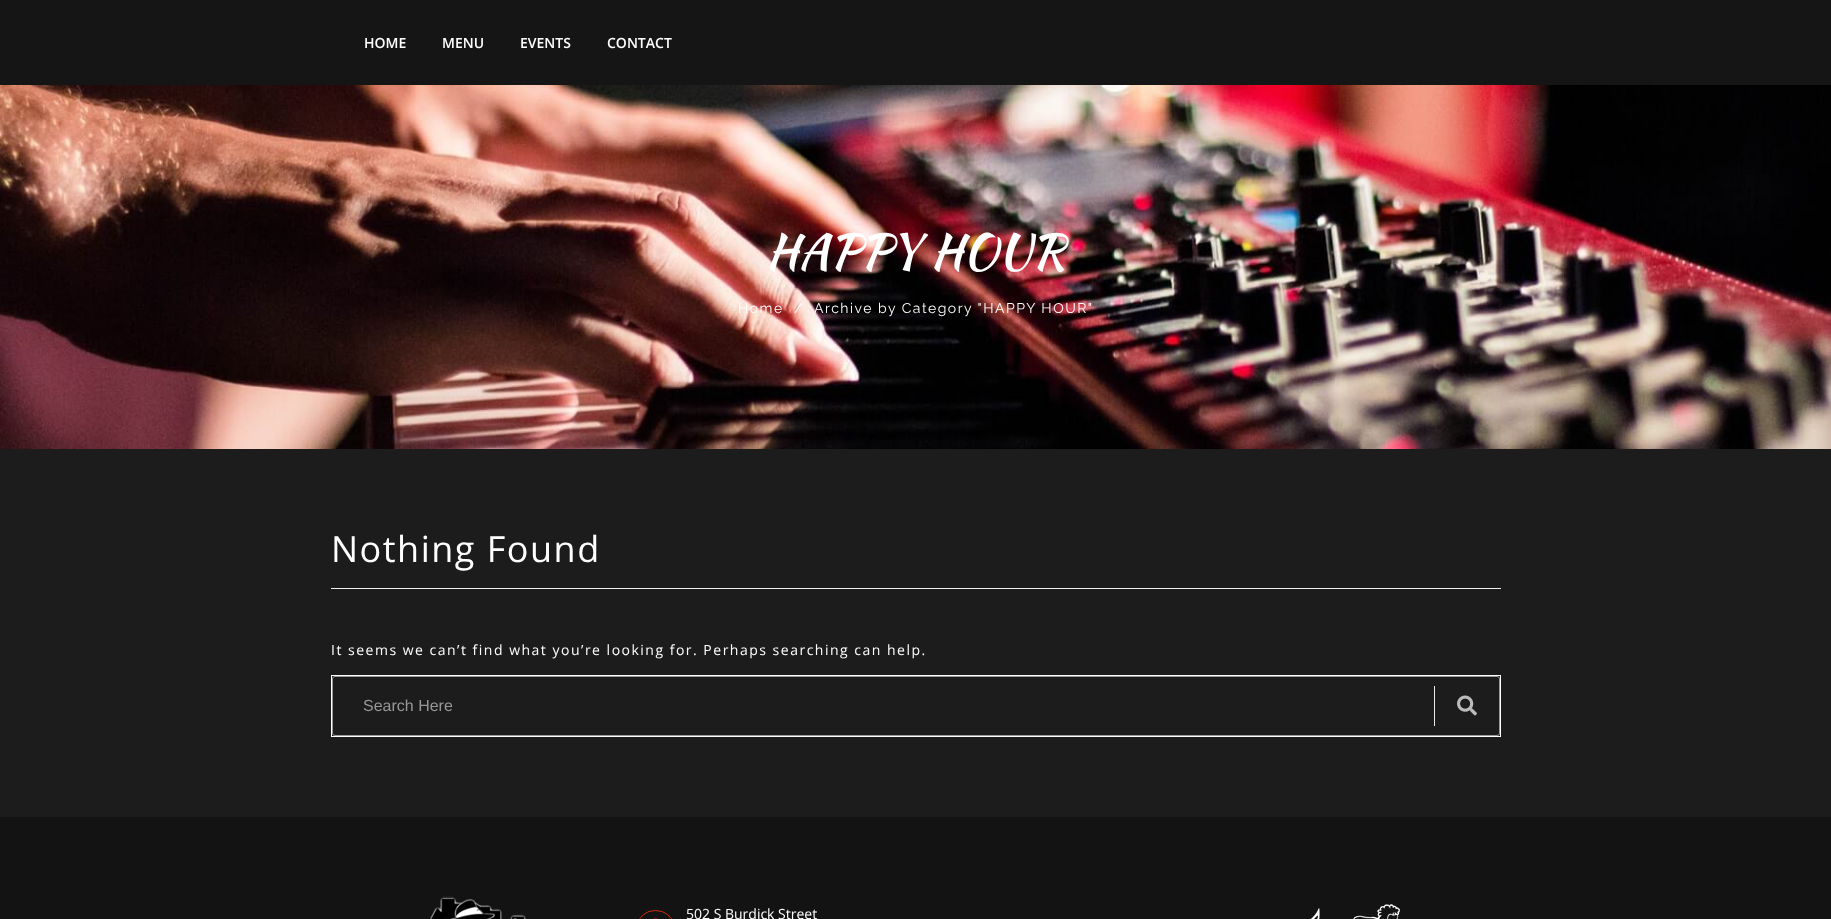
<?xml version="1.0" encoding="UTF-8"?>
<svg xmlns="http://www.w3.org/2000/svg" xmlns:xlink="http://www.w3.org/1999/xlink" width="1831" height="919">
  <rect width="100%" height="100%" fill="#1c1c1c" />
  <rect width="1831" height="85" fill="#151515" />
  <image x="0" y="85" width="1831" height="364" xlink:href="image1.png" />
  <rect x="331" y="588" width="1170" height="1" fill="#eeeeee" />
  <rect x="331.5" y="675.5" width="1169" height="61" fill="none" stroke="#ffffff" />
  <rect x="332.5" y="676.5" width="1167" height="59" rx="2.5" fill="none" stroke="#999999" />
  <rect x="1434" y="686" width="1" height="40" fill="#eaeaea" />
  <image x="1457" y="695" width="20" height="21" xlink:href="image2.png" />
  <rect y="817" width="1831" height="102" fill="#131313" />
  <image x="430" y="896" width="96" height="23" xlink:href="image3.png" />
  <rect x="638.5" y="910.5" width="34" height="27" rx="17" fill="none" stroke="#d32d0b" />
  <image x="653" y="918" width="5" height="1" xlink:href="image4.png" />
  <image x="1310" y="904" width="90" height="15" xlink:href="image5.png" />
  <text x="364" y="48" style="font-family: Open Sans; font-size: 14px; font-weight: 600; fill: #ffffff">HOME</text>
  <text x="442" y="48" style="font-family: Open Sans; font-size: 14px; font-weight: 600; fill: #ffffff">MENU</text>
  <text x="520" y="48" style="font-family: Open Sans; font-size: 14px; font-weight: 600; fill: #ffffff">EVENTS</text>
  <text x="607" y="48" style="font-family: Open Sans; font-size: 14px; font-weight: 600; fill: #ffffff">CONTACT</text>
  <text x="766" y="268" style="font-family: Kaushan Script; font-size: 48px; fill: #ffffff">HAPPY HOUR</text>
  <text x="738" y="313" style="font-family: Raleway; font-size: 14px; letter-spacing: 1.5px; fill: #ffffff">Home</text>
  <text x="794" y="313" style="font-family: Raleway; font-size: 14px; letter-spacing: 1.5px; fill: #ffffff">/</text>
  <text x="814" y="313" style="font-family: Raleway; font-size: 14px; letter-spacing: 1.5px; fill: #ffffff">Archive by Category "HAPPY HOUR"</text>
  <text x="331" y="562" style="font-family: Open Sans; font-size: 36px; letter-spacing: 1.5px; fill: #ffffff">Nothing Found</text>
  <text x="331" y="655" style="font-family: Open Sans; font-size: 14px; letter-spacing: 1.5px; fill: #ffffff">It seems we can’t find what you’re looking for. Perhaps searching can help.</text>
  <text x="363" y="711" style="font-family: Liberation Sans; font-size: 16px; fill: #989797">Search Here</text>
  <text x="686" y="919" style="font-family: Open Sans; font-size: 14px; fill: #ffffff">502 S Burdick Street</text>
</svg>
